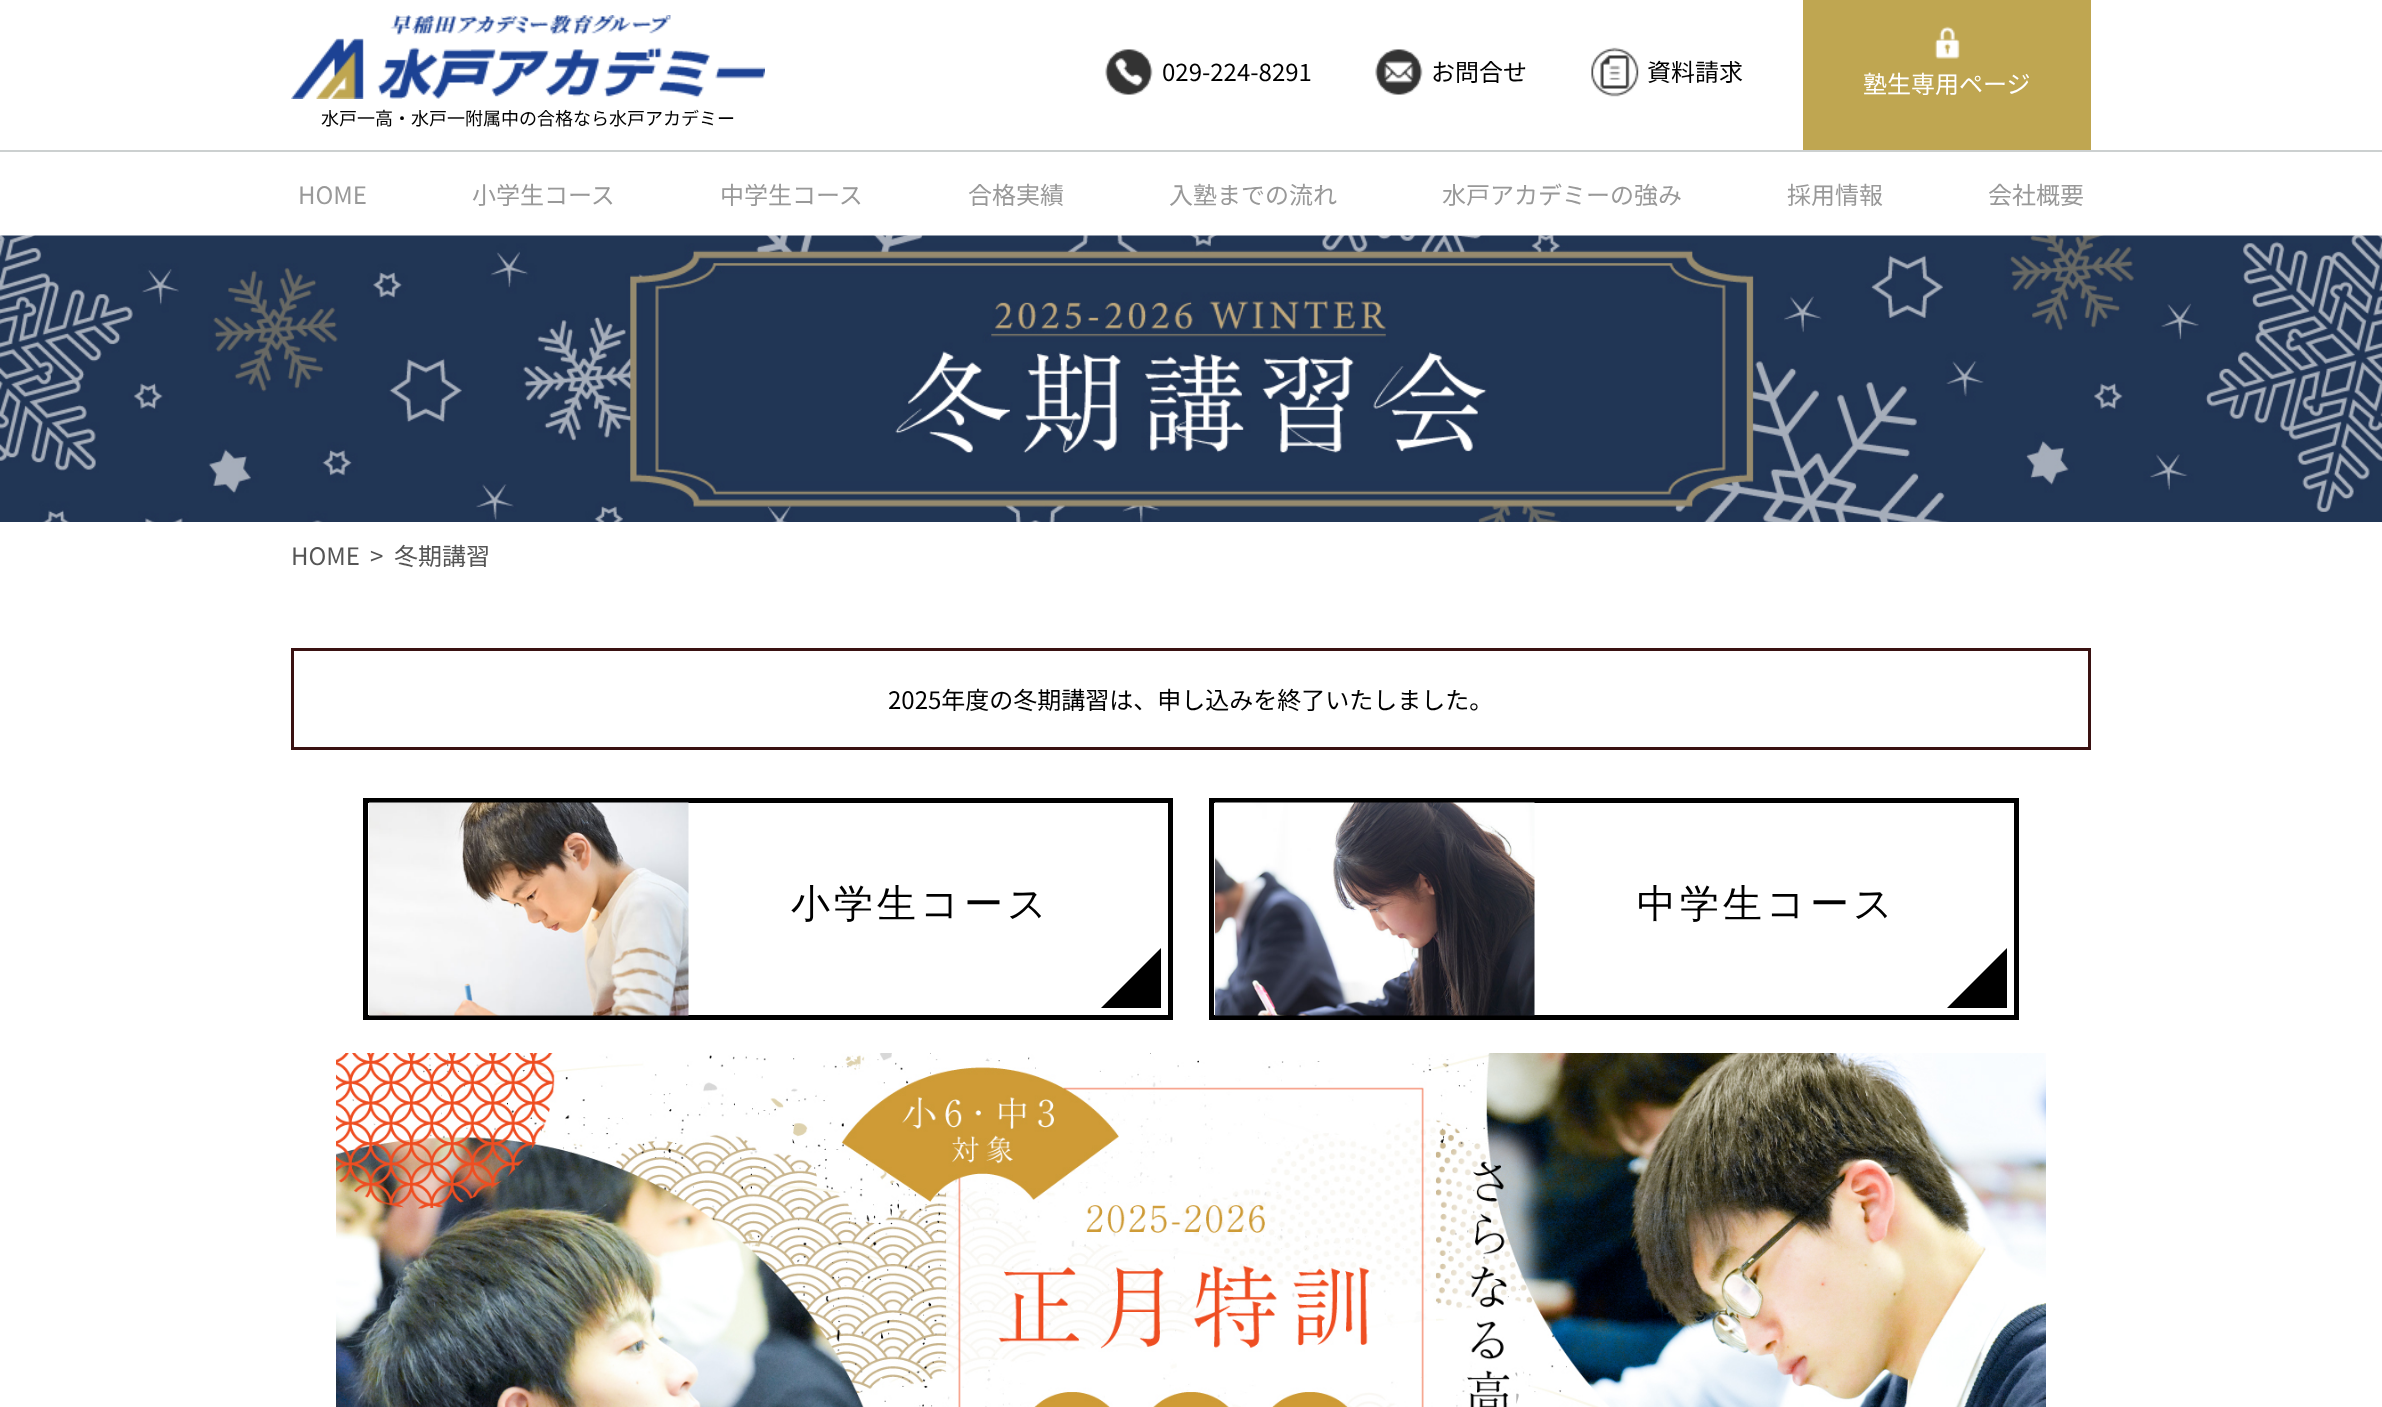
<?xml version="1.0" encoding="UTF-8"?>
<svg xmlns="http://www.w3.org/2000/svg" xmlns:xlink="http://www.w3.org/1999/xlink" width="2382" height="1407">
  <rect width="100%" height="100%" fill="#ffffff" />
  <image x="1105" y="49" width="48" height="46" xlink:href="image1.png" />
  <image x="1375" y="49" width="48" height="46" xlink:href="image2.png" />
  <image x="1591" y="47" width="48" height="50" xlink:href="image3.png" />
  <rect x="1803" width="288" height="150" fill="#bfa651" />
  <image x="1934" y="26" width="26" height="33" xlink:href="image4.png" />
  <image x="291" y="15" width="474" height="84" xlink:href="image5.png" />
  <rect y="150" width="2382" height="2" fill="#ccd0d0" />
  <image x="0" y="235" width="2382" height="287" xlink:href="image6.png" />
  <rect x="292.5" y="649.5" width="1797" height="99" fill="none" stroke="#3a1212" stroke-width="3" />
  <rect x="365.5" y="800.5" width="805" height="217" fill="none" stroke="#000000" stroke-width="5" />
  <image x="369" y="802" width="320" height="214" xlink:href="image7.png" />
  <path d="M 1161 1008 h -60 l 60 -60 z" fill="#000000" />
  <rect x="1211.5" y="800.5" width="805" height="217" fill="none" stroke="#000000" stroke-width="5" />
  <image x="1215" y="802" width="320" height="214" xlink:href="image8.png" />
  <path d="M 2007 1008 h -60 l 60 -60 z" fill="#000000" />
  <image x="336" y="1053" width="1710" height="354" xlink:href="image9.png" />
  <text x="1162" y="81" style="font-family: Noto Sans JP; font-size: 24px; font-weight: 100; fill: #000000">029-224-8291</text>
  <text x="1431" y="81" style="font-family: Noto Sans JP; font-size: 24px; font-weight: 100; fill: #000000">お問合せ</text>
  <text x="1647" y="81" style="font-family: Noto Sans JP; font-size: 24px; font-weight: 100; fill: #000000">資料請求</text>
  <text x="1863" y="93" style="font-family: Noto Sans JP; font-size: 24px; font-weight: 100; fill: #ffffff">塾生専用ページ</text>
  <text x="321" y="125" style="font-family: Noto Sans JP; font-size: 18px; font-weight: 100; fill: #000000">水戸一高・水戸一附属中の合格なら水戸アカデミー</text>
  <text x="298" y="204" style="font-family: Noto Sans JP; font-size: 24px; font-weight: 100; fill: #999999">HOME</text>
  <text x="472" y="204" style="font-family: Noto Sans JP; font-size: 24px; font-weight: 100; fill: #999999">小学生コース</text>
  <text x="720" y="204" style="font-family: Noto Sans JP; font-size: 24px; font-weight: 100; fill: #999999">中学生コース</text>
  <text x="968" y="204" style="font-family: Noto Sans JP; font-size: 24px; font-weight: 100; fill: #999999">合格実績</text>
  <text x="1169" y="204" style="font-family: Noto Sans JP; font-size: 24px; font-weight: 100; fill: #999999">入塾までの流れ</text>
  <text x="1442" y="204" style="font-family: Noto Sans JP; font-size: 24px; font-weight: 100; fill: #999999">水戸アカデミーの強み</text>
  <text x="1787" y="204" style="font-family: Noto Sans JP; font-size: 24px; font-weight: 100; fill: #999999">採用情報</text>
  <text x="1988" y="204" style="font-family: Noto Sans JP; font-size: 24px; font-weight: 100; fill: #999999">会社概要</text>
  <text x="291" y="565" style="font-family: Noto Sans JP; font-size: 24px; font-weight: 100; fill: #555555">HOME</text>
  <text x="370" y="565" style="font-family: Noto Sans JP; font-size: 24px; font-weight: 100; fill: #555555">&gt;</text>
  <text x="394" y="565" style="font-family: Noto Sans JP; font-size: 24px; font-weight: 100; fill: #555555">冬期講習</text>
  <text x="888" y="709" style="font-family: Noto Sans JP; font-size: 24px; font-weight: 100; fill: #000000">2025年度の冬期講習は、申し込みを終了いたしました。</text>
  <text x="791" y="917" style="font-family: WenQuanYi Zen Hei; font-size: 39px; font-weight: 500; letter-spacing: 4px; fill: #000000">小学生コース</text>
  <text x="1637" y="917" style="font-family: WenQuanYi Zen Hei; font-size: 39px; font-weight: 500; letter-spacing: 4px; fill: #000000">中学生コース</text>
</svg>
